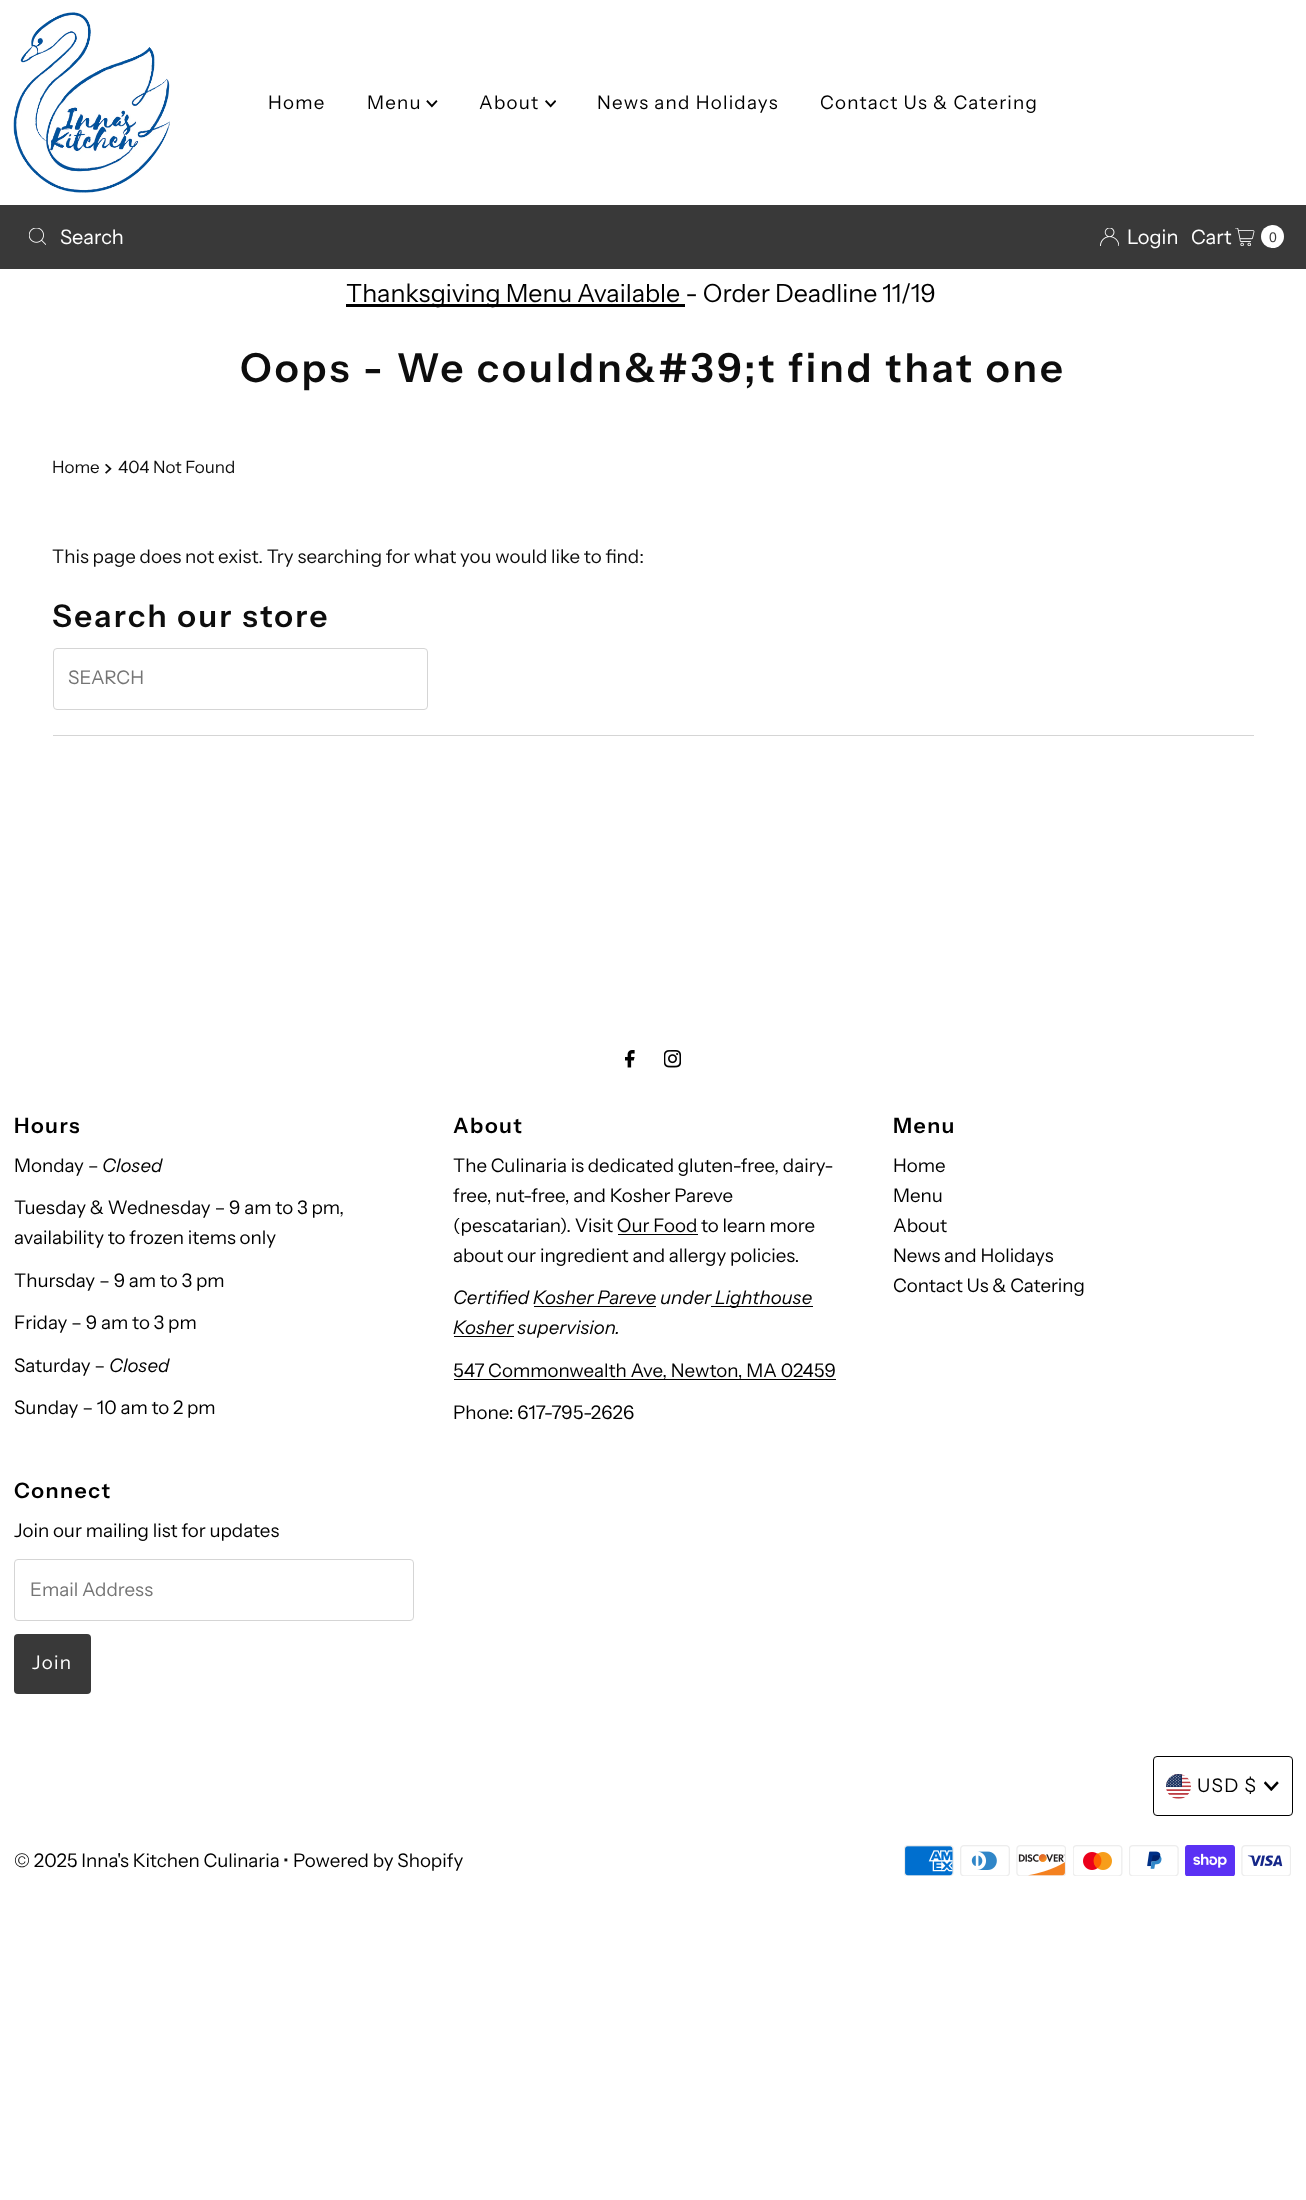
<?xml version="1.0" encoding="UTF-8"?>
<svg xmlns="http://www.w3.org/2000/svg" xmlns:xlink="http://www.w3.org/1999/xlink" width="1306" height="2200">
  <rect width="100%" height="100%" fill="#ffffff" />
  <image x="13" y="12" width="157" height="181" xlink:href="image1.png" />
  <image x="426" y="100" width="12" height="8" xlink:href="image2.png" />
  <image x="545" y="100" width="11" height="8" xlink:href="image3.png" />
  <rect y="205" width="1306" height="64" fill="#393939" />
  <image x="29" y="228" width="17" height="17" xlink:href="image4.png" />
  <image x="1100" y="228" width="19" height="18" xlink:href="image5.png" />
  <image x="1235" y="228" width="20" height="18" xlink:href="image6.png" />
  <circle cx="1272.5" cy="236.5" r="11.5" fill="#ffffff" />
  <rect x="346" y="304" width="339" height="3" fill="#000000" />
  <image x="105" y="464" width="7" height="10" xlink:href="image7.png" />
  <rect x="53" y="735" width="1201" height="1" fill="#d5d5d5" />
  <rect x="53.5" y="648.5" width="374" height="61" rx="3.5" fill="none" stroke="#d5d5d5" />
  <image x="625" y="1050" width="10" height="18" xlink:href="image8.png" />
  <image x="664" y="1050" width="17" height="18" xlink:href="image9.png" />
  <rect x="618" y="1234" width="80" height="1" fill="#000000" />
  <rect x="711" y="1306" width="102" height="1" fill="#000000" />
  <rect x="534" y="1306" width="122" height="1" fill="#000000" />
  <rect x="454" y="1336" width="60" height="1" fill="#000000" />
  <rect x="454" y="1379" width="382" height="1" fill="#000000" />
  <rect x="14.5" y="1559.5" width="399" height="61" rx="3.5" fill="none" stroke="#d5d5d5" />
  <rect x="14" y="1634" width="77" height="60" rx="4" fill="#393939" />
  <rect x="1153.5" y="1756.5" width="139" height="59" rx="3.5" fill="none" stroke="#000000" />
  <image x="1166" y="1774" width="25" height="25" xlink:href="image10.png" />
  <image x="1264" y="1781" width="15" height="10" xlink:href="image11.png" />
  <image x="904" y="1845" width="50" height="31" xlink:href="image12.png" />
  <image x="960" y="1845" width="50" height="31" xlink:href="image13.png" />
  <image x="1016" y="1845" width="50" height="31" xlink:href="image14.png" />
  <image x="1073" y="1845" width="50" height="31" xlink:href="image15.png" />
  <image x="1129" y="1845" width="50" height="31" xlink:href="image16.png" />
  <image x="1185" y="1845" width="50" height="31" xlink:href="image17.png" />
  <image x="1241" y="1845" width="50" height="31" xlink:href="image18.png" />
  <text x="268" y="109" style="font-family: Instrument Sans; font-size: 18.75px; letter-spacing: 1.25px; fill: #000000">Home</text>
  <text x="367" y="109" style="font-family: Instrument Sans; font-size: 18.75px; letter-spacing: 1.25px; fill: #000000">Menu</text>
  <text x="479" y="109" style="font-family: Instrument Sans; font-size: 18.75px; letter-spacing: 1.25px; fill: #000000">About</text>
  <text x="597" y="109" style="font-family: Instrument Sans; font-size: 18.75px; letter-spacing: 1.25px; fill: #000000">News and Holidays</text>
  <text x="820" y="109" style="font-family: Instrument Sans; font-size: 18.75px; letter-spacing: 1.25px; fill: #000000">Contact Us &amp; Catering</text>
  <text x="60" y="244" style="font-family: Instrument Sans; font-size: 20px; fill: #ffffff">Search</text>
  <text x="1127" y="244" style="font-family: Instrument Sans; font-size: 20px; fill: #ffffff">Login</text>
  <text x="1191" y="244" style="font-family: Instrument Sans; font-size: 20px; fill: #ffffff">Cart</text>
  <text x="1269" y="242" style="font-family: Liberation Sans; font-size: 14px; fill: #393939">0</text>
  <text x="346" y="302" style="font-family: Instrument Sans; font-size: 25px; fill: #000000">Thanksgiving Menu Available - Order Deadline 11/19</text>
  <text x="240" y="382" style="font-family: Instrument Sans; font-size: 40px; font-weight: 600; letter-spacing: 3px; fill: #0d0d0d">Oops - We couldn&amp;#39;t find that one</text>
  <text x="52" y="473" style="font-family: Instrument Sans; font-size: 17px; fill: #0d0d0d">Home</text>
  <text x="118" y="473" style="font-family: Instrument Sans; font-size: 17px; fill: #0d0d0d">404 Not Found</text>
  <text x="52" y="563" style="font-family: Instrument Sans; font-size: 18.75px; fill: #0d0d0d">This page does not exist. Try searching for what you would like to find:</text>
  <text x="52" y="627" style="font-family: Instrument Sans; font-size: 31.25px; font-weight: 600; letter-spacing: 2.3px; fill: #0d0d0d">Search our store</text>
  <text x="68" y="684" style="font-family: Instrument Sans; font-size: 18.75px; fill: #757575">SEARCH</text>
  <text x="14" y="1133" style="font-family: Instrument Sans; font-size: 21.25px; font-weight: 600; letter-spacing: 1.5px; fill: #000000">Hours</text>
  <text x="14" y="1172" style="font-family: Instrument Sans; font-size: 18.75px; fill: #000000">Monday –</text>
  <text x="102" y="1172" style="font-family: Instrument Sans; font-size: 18.75px; font-style: italic; fill: #000000">Closed</text>
  <text x="14" y="1214" style="font-family: Instrument Sans; font-size: 18.75px; fill: #000000">Tuesday &amp; Wednesday – 9 am to 3 pm,</text>
  <text x="14" y="1244" style="font-family: Instrument Sans; font-size: 18.75px; fill: #000000">availability to frozen items only</text>
  <text x="14" y="1287" style="font-family: Instrument Sans; font-size: 18.75px; fill: #000000">Thursday – 9 am to 3 pm</text>
  <text x="14" y="1329" style="font-family: Instrument Sans; font-size: 18.75px; fill: #000000">Friday – 9 am to 3 pm</text>
  <text x="14" y="1372" style="font-family: Instrument Sans; font-size: 18.75px; fill: #000000">Saturday –</text>
  <text x="109" y="1372" style="font-family: Instrument Sans; font-size: 18.75px; font-style: italic; fill: #000000">Closed</text>
  <text x="14" y="1414" style="font-family: Instrument Sans; font-size: 18.75px; fill: #000000">Sunday – 10 am to 2 pm</text>
  <text x="453" y="1133" style="font-family: Instrument Sans; font-size: 21.25px; font-weight: 600; letter-spacing: 1.5px; fill: #000000">About</text>
  <text x="453" y="1172" style="font-family: Instrument Sans; font-size: 18.75px; fill: #000000">The Culinaria is dedicated gluten-free, dairy-</text>
  <text x="453" y="1202" style="font-family: Instrument Sans; font-size: 18.75px; fill: #000000">free, nut-free, and Kosher Pareve</text>
  <text x="453" y="1232" style="font-family: Instrument Sans; font-size: 18.75px; fill: #000000">(pescatarian). Visit Our Food to learn more</text>
  <text x="453" y="1262" style="font-family: Instrument Sans; font-size: 18.75px; fill: #000000">about our ingredient and allergy policies.</text>
  <text x="453" y="1304" style="font-family: Instrument Sans; font-size: 18.75px; font-style: italic; fill: #000000">Certified Kosher Pareve under</text>
  <text x="715" y="1304" style="font-family: Instrument Sans; font-size: 18.75px; font-style: italic; fill: #000000">Lighthouse</text>
  <text x="453" y="1334" style="font-family: Instrument Sans; font-size: 18.75px; font-style: italic; fill: #000000">Kosher supervision.</text>
  <text x="453" y="1377" style="font-family: Instrument Sans; font-size: 18.75px; fill: #000000">547 Commonwealth Ave, Newton, MA 02459</text>
  <text x="453" y="1419" style="font-family: Instrument Sans; font-size: 18.75px; fill: #000000">Phone: 617-795-2626</text>
  <text x="893" y="1133" style="font-family: Instrument Sans; font-size: 21.25px; font-weight: 600; letter-spacing: 1.5px; fill: #000000">Menu</text>
  <text x="893" y="1172" style="font-family: Instrument Sans; font-size: 18.75px; fill: #000000">Home</text>
  <text x="893" y="1202" style="font-family: Instrument Sans; font-size: 18.75px; fill: #000000">Menu</text>
  <text x="893" y="1232" style="font-family: Instrument Sans; font-size: 18.75px; fill: #000000">About</text>
  <text x="893" y="1262" style="font-family: Instrument Sans; font-size: 18.75px; fill: #000000">News and Holidays</text>
  <text x="893" y="1292" style="font-family: Instrument Sans; font-size: 18.75px; fill: #000000">Contact Us &amp; Catering</text>
  <text x="14" y="1498" style="font-family: Instrument Sans; font-size: 21.25px; font-weight: 600; letter-spacing: 1.5px; fill: #000000">Connect</text>
  <text x="14" y="1537" style="font-family: Instrument Sans; font-size: 18.75px; fill: #000000">Join our mailing list for updates</text>
  <text x="30" y="1596" style="font-family: Instrument Sans; font-size: 18.75px; fill: #757575">Email Address</text>
  <text x="32" y="1669" style="font-family: Instrument Sans; font-size: 18.75px; letter-spacing: 1.25px; fill: #ffffff">Join</text>
  <text x="1197" y="1792" style="font-family: Instrument Sans; font-size: 18.75px; letter-spacing: 1.25px; fill: #000000">USD $</text>
  <text x="14" y="1867" style="font-family: Instrument Sans; font-size: 18.75px; fill: #000000">© 2025 Inna's Kitchen Culinaria</text>
  <text x="283" y="1867" style="font-family: Instrument Sans; font-size: 18.75px; fill: #0d0d0d">•</text>
  <text x="293" y="1867" style="font-family: Instrument Sans; font-size: 18.75px; fill: #000000">Powered by Shopify</text>
</svg>
